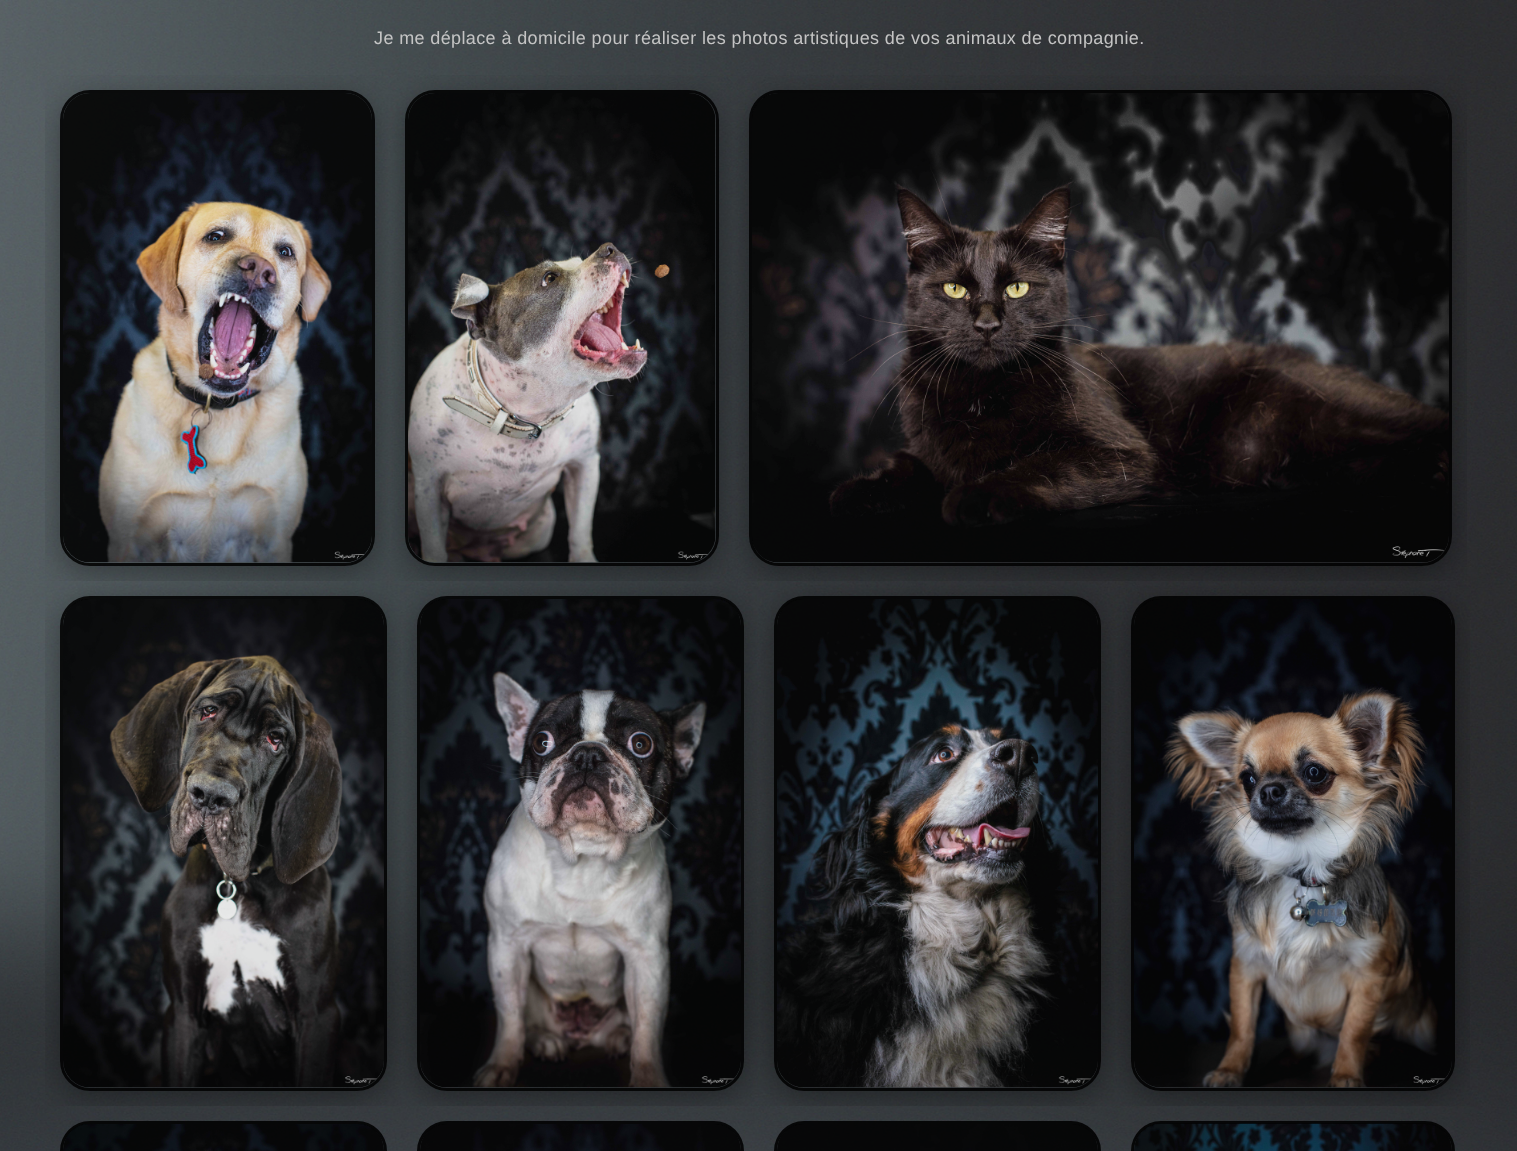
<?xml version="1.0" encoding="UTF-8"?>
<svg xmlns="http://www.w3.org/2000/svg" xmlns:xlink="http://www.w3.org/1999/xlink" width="1517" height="1151">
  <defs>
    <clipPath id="clip1"><rect x="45" y="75" width="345" height="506" /></clipPath>
    <clipPath id="clip2"><path d="M 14 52 h 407 v 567 h -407 z m 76 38 h 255 c 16.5 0 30 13.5 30 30 v 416 c 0 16.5 -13.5 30 -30 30 h -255 c -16.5 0 -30 -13.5 -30 -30 v -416 c 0 -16.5 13.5 -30 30 -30 z" clip-rule="evenodd" /></clipPath>
    <clipPath id="clip3"><rect x="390" y="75" width="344" height="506" /></clipPath>
    <clipPath id="clip4"><path d="M 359 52 h 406 v 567 h -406 z m 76 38 h 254 c 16.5 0 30 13.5 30 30 v 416 c 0 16.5 -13.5 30 -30 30 h -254 c -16.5 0 -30 -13.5 -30 -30 v -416 c 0 -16.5 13.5 -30 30 -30 z" clip-rule="evenodd" /></clipPath>
    <clipPath id="clip5"><rect x="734" y="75" width="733" height="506" /></clipPath>
    <clipPath id="clip6"><path d="M 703 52 h 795 v 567 h -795 z m 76 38 h 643 c 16.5 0 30 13.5 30 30 v 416 c 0 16.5 -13.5 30 -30 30 h -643 c -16.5 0 -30 -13.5 -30 -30 v -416 c 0 -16.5 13.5 -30 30 -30 z" clip-rule="evenodd" /></clipPath>
    <clipPath id="clip7"><rect x="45" y="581" width="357" height="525" /></clipPath>
    <clipPath id="clip8"><path d="M 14 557 h 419 v 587 h -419 z m 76 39 h 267 c 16.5 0 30 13.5 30 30 v 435 c 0 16.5 -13.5 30 -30 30 h -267 c -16.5 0 -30 -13.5 -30 -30 v -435 c 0 -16.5 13.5 -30 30 -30 z" clip-rule="evenodd" /></clipPath>
    <clipPath id="clip9"><rect x="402" y="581" width="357" height="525" /></clipPath>
    <clipPath id="clip10"><path d="M 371 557 h 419 v 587 h -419 z m 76 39 h 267 c 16.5 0 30 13.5 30 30 v 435 c 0 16.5 -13.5 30 -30 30 h -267 c -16.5 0 -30 -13.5 -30 -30 v -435 c 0 -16.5 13.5 -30 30 -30 z" clip-rule="evenodd" /></clipPath>
    <clipPath id="clip11"><rect x="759" y="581" width="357" height="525" /></clipPath>
    <clipPath id="clip12"><path d="M 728 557 h 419 v 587 h -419 z m 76 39 h 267 c 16.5 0 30 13.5 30 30 v 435 c 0 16.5 -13.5 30 -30 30 h -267 c -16.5 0 -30 -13.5 -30 -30 v -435 c 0 -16.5 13.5 -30 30 -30 z" clip-rule="evenodd" /></clipPath>
    <clipPath id="clip13"><rect x="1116" y="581" width="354" height="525" /></clipPath>
    <clipPath id="clip14"><path d="M 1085 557 h 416 v 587 h -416 z m 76 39 h 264 c 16.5 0 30 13.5 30 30 v 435 c 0 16.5 -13.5 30 -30 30 h -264 c -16.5 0 -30 -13.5 -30 -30 v -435 c 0 -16.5 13.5 -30 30 -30 z" clip-rule="evenodd" /></clipPath>
  </defs>
  <rect width="100%" height="100%" fill="#ffffff" />
  <image x="0" y="0" width="1517" height="1151" xlink:href="image1.png" />
  <g clip-path="url(#clip1)">
    <g clip-path="url(#clip2)">
      <rect x="60" y="98" width="315" height="475" rx="30" fill="#000000" fill-opacity="0.35" filter="blur(15px)" />
    </g>
  </g>
  <rect x="61.5" y="91.5" width="312" height="473" rx="28.5" fill="none" stroke="#000000" stroke-opacity="0.88" stroke-width="3" />
  <image x="63" y="93" width="309" height="470" xlink:href="image2.png" />
  <g clip-path="url(#clip3)">
    <g clip-path="url(#clip4)">
      <rect x="405" y="98" width="314" height="475" rx="30" fill="#000000" fill-opacity="0.35" filter="blur(15px)" />
    </g>
  </g>
  <rect x="406.5" y="91.5" width="311" height="473" rx="28.5" fill="none" stroke="#000000" stroke-opacity="0.88" stroke-width="3" />
  <image x="408" y="93" width="308" height="470" xlink:href="image3.png" />
  <g clip-path="url(#clip5)">
    <g clip-path="url(#clip6)">
      <rect x="749" y="98" width="703" height="475" rx="30" fill="#000000" fill-opacity="0.35" filter="blur(15px)" />
    </g>
  </g>
  <rect x="750.5" y="91.5" width="700" height="473" rx="28.5" fill="none" stroke="#000000" stroke-opacity="0.88" stroke-width="3" />
  <image x="752" y="93" width="697" height="470" xlink:href="image4.png" />
  <g clip-path="url(#clip7)">
    <g clip-path="url(#clip8)">
      <rect x="60" y="603" width="327" height="495" rx="30" fill="#000000" fill-opacity="0.35" filter="blur(15px)" />
    </g>
  </g>
  <rect x="61.5" y="597.5" width="324" height="492" rx="28.5" fill="none" stroke="#000000" stroke-opacity="0.88" stroke-width="3" />
  <image x="63" y="599" width="321" height="489" xlink:href="image5.png" />
  <g clip-path="url(#clip9)">
    <g clip-path="url(#clip10)">
      <rect x="417" y="603" width="327" height="495" rx="30" fill="#000000" fill-opacity="0.35" filter="blur(15px)" />
    </g>
  </g>
  <rect x="418.5" y="597.5" width="324" height="492" rx="28.5" fill="none" stroke="#000000" stroke-opacity="0.88" stroke-width="3" />
  <image x="420" y="599" width="321" height="489" xlink:href="image6.png" />
  <g clip-path="url(#clip11)">
    <g clip-path="url(#clip12)">
      <rect x="774" y="603" width="327" height="495" rx="30" fill="#000000" fill-opacity="0.35" filter="blur(15px)" />
    </g>
  </g>
  <rect x="775.5" y="597.5" width="324" height="492" rx="28.5" fill="none" stroke="#000000" stroke-opacity="0.88" stroke-width="3" />
  <image x="777" y="599" width="321" height="489" xlink:href="image7.png" />
  <g clip-path="url(#clip13)">
    <g clip-path="url(#clip14)">
      <rect x="1131" y="603" width="324" height="495" rx="30" fill="#000000" fill-opacity="0.35" filter="blur(15px)" />
    </g>
  </g>
  <rect x="1132.5" y="597.5" width="321" height="492" rx="28.5" fill="none" stroke="#000000" stroke-opacity="0.88" stroke-width="3" />
  <image x="1134" y="599" width="318" height="489" xlink:href="image8.png" />
  <rect x="61.5" y="1122.5" width="324" height="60" rx="28.5" fill="none" stroke="#000000" stroke-opacity="0.88" stroke-width="3" />
  <image x="63" y="1124" width="321" height="27" xlink:href="image9.png" />
  <rect x="418.5" y="1122.5" width="324" height="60" rx="28.5" fill="none" stroke="#000000" stroke-opacity="0.88" stroke-width="3" />
  <image x="420" y="1124" width="321" height="27" xlink:href="image10.png" />
  <rect x="775.5" y="1122.5" width="324" height="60" rx="28.5" fill="none" stroke="#000000" stroke-opacity="0.88" stroke-width="3" />
  <image x="777" y="1124" width="321" height="27" xlink:href="image11.png" />
  <rect x="1132.5" y="1122.5" width="321" height="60" rx="28.5" fill="none" stroke="#000000" stroke-opacity="0.88" stroke-width="3" />
  <image x="1134" y="1123" width="318" height="28" xlink:href="image12.png" />
  <text x="374" y="44" style="font-family: Liberation Sans; font-size: 18px; letter-spacing: 0.38px; fill: #c4c4c4">Je me déplace à domicile pour réaliser les photos artistiques de vos animaux de compagnie.</text>
</svg>
